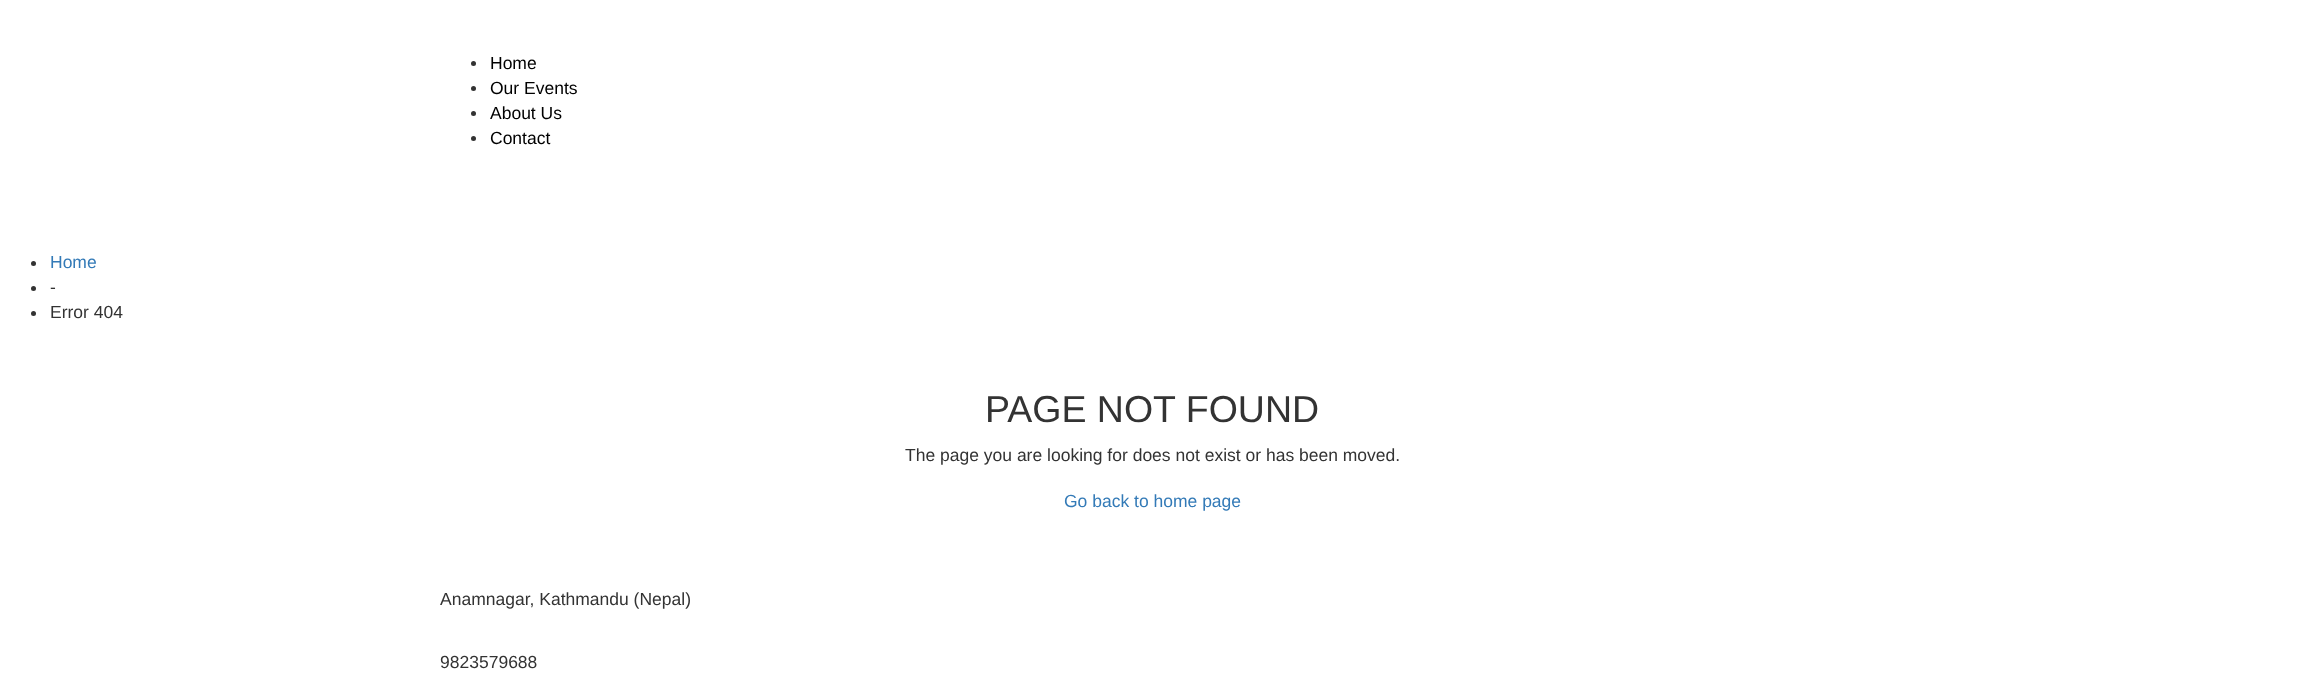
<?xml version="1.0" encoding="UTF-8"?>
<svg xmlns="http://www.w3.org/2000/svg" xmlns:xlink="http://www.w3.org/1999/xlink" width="2304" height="686">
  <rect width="100%" height="100%" fill="#ffffff" />
  <circle cx="473.5" cy="63.5" r="2.5" fill="#333333" />
  <circle cx="473.5" cy="88.5" r="2.5" fill="#333333" />
  <circle cx="473.5" cy="113.5" r="2.5" fill="#333333" />
  <circle cx="473.5" cy="138.5" r="2.5" fill="#333333" />
  <circle cx="33.5" cy="263.5" r="2.5" fill="#333333" />
  <circle cx="33.5" cy="288.5" r="2.5" fill="#333333" />
  <circle cx="33.5" cy="313.5" r="2.5" fill="#333333" />
  <text x="490" y="69" style="font-family: Liberation Sans; font-size: 17.5px; fill: #000000">Home</text>
  <text x="490" y="94" style="font-family: Liberation Sans; font-size: 17.5px; fill: #000000">Our Events</text>
  <text x="490" y="119" style="font-family: Liberation Sans; font-size: 17.5px; fill: #000000">About Us</text>
  <text x="490" y="144" style="font-family: Liberation Sans; font-size: 17.5px; fill: #000000">Contact</text>
  <text x="50" y="268" style="font-family: Liberation Sans; font-size: 17.5px; fill: #337ab7">Home</text>
  <text x="50" y="293" style="font-family: Liberation Sans; font-size: 17.5px; fill: #333333">-</text>
  <text x="50" y="318" style="font-family: Liberation Sans; font-size: 17.5px; fill: #333333">Error 404</text>
  <text x="985" y="422" style="font-family: Liberation Sans; font-size: 37.5px; fill: #333333">PAGE NOT FOUND</text>
  <text x="905" y="461" style="font-family: Liberation Sans; font-size: 17.5px; fill: #333333">The page you are looking for does not exist or has been moved.</text>
  <text x="1064" y="507" style="font-family: Liberation Sans; font-size: 17.5px; fill: #337ab7">Go back to home page</text>
  <text x="440" y="605" style="font-family: Liberation Sans; font-size: 17.5px; fill: #333333">Anamnagar, Kathmandu (Nepal)</text>
  <text x="440" y="668" style="font-family: Liberation Sans; font-size: 17.5px; fill: #333333">9823579688</text>
</svg>
